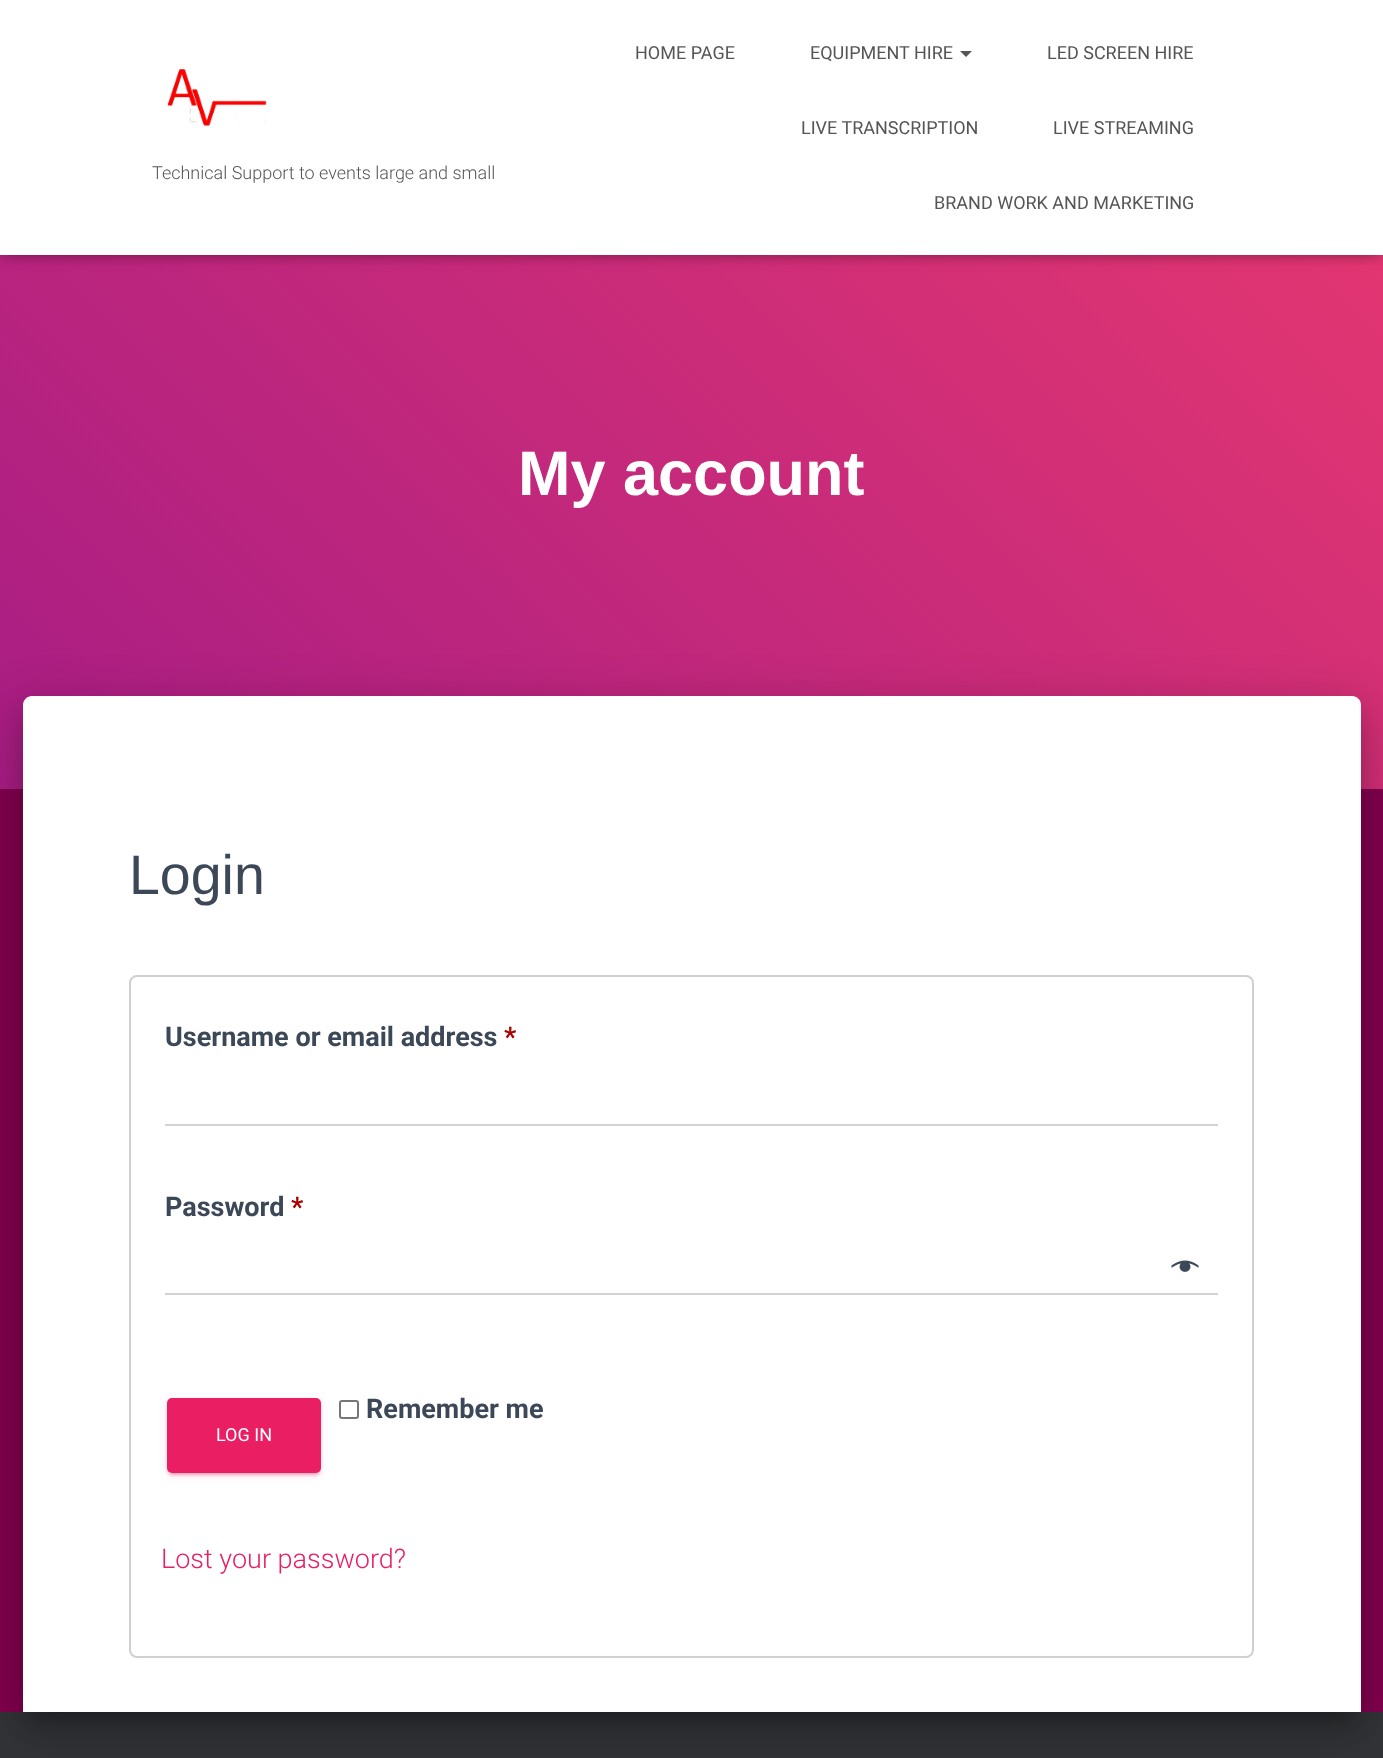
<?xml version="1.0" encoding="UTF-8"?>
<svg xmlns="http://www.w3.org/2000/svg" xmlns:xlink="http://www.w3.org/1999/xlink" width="1383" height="1758">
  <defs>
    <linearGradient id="g1" gradientUnits="userSpaceOnUse" x1="147" y1="936" x2="1236" y2="-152"><stop offset="0" stop-color="#a81d84" /><stop offset="1" stop-color="#ea396f" /></linearGradient>
  </defs>
  <rect width="100%" height="100%" fill="#82004e" />
  <rect y="255" width="1383" height="534" fill="url(#g1)" />
  <rect x="3" y="9" width="1377" height="249" fill="#000000" fill-opacity="0.1" filter="blur(4px)" />
  <rect y="2" width="1383" height="255" fill="#000000" fill-opacity="0.12" filter="blur(7.5px)" />
  <rect x="9" y="11" width="1365" height="237" fill="#000000" fill-opacity="0.42" filter="blur(7.5px)" />
  <rect width="1383" height="255" fill="#ffffff" />
  <image x="167" y="68" width="100" height="59" xlink:href="image1.png" />
  <path d="M 960 51 h 12 l -6 6 z" fill="#555555" />
  <rect y="1712" width="1383" height="46" fill="#323437" />
  <rect x="30" y="716" width="1323" height="1000" rx="1.5" fill="#000000" fill-opacity="0.2" filter="blur(7.5px)" />
  <rect x="15" y="698" width="1353" height="1030" rx="17" fill="#000000" fill-opacity="0.12" filter="blur(22.5px)" />
  <rect x="20" y="717" width="1344" height="1022" rx="12" fill="#000000" fill-opacity="0.14" filter="blur(18px)" />
  <path d="M 32 696 h 1320 c 5 0 9 4 9 9 v 1007 h -1338 v -1007 c 0 -5 4 -9 9 -9 z" fill="#ffffff" />
  <rect x="130" y="976" width="1123" height="681" rx="7" fill="none" stroke="#d3ced2" stroke-width="2" />
  <rect x="165" y="1124" width="1053" height="2" fill="#d2d2d2" />
  <image x="1171" y="1260" width="28" height="12" xlink:href="image2.png" />
  <rect x="165" y="1293" width="1053" height="2" fill="#d2d2d2" />
  <rect x="340" y="1401" width="18" height="17" rx="2" fill="none" stroke="#767676" stroke-width="2" />
  <rect x="167" y="1400" width="154" height="75" rx="5" fill="#e91e63" fill-opacity="0.12" filter="blur(4px)" />
  <rect x="170" y="1406" width="148" height="69" rx="1.5" fill="#e91e63" fill-opacity="0.2" filter="blur(1px)" />
  <rect x="167" y="1401" width="154" height="75" rx="5" fill="#e91e63" fill-opacity="0.14" filter="blur(1.5px)" />
  <rect x="167" y="1398" width="154" height="75" rx="5" fill="#e91e63" />
  <text x="152" y="179" style="font-family: Roboto; font-size: 18px; font-weight: 300; fill: #555555">Technical Support to events large and small</text>
  <text x="635" y="59" style="font-family: Roboto; font-size: 18px; fill: #555555">HOME PAGE</text>
  <text x="810" y="59" style="font-family: Roboto; font-size: 18px; fill: #555555">EQUIPMENT HIRE</text>
  <text x="1047" y="59" style="font-family: Roboto; font-size: 18px; fill: #555555">LED SCREEN HIRE</text>
  <text x="801" y="134" style="font-family: Roboto; font-size: 18px; fill: #555555">LIVE TRANSCRIPTION</text>
  <text x="1053" y="134" style="font-family: Roboto; font-size: 18px; fill: #555555">LIVE STREAMING</text>
  <text x="934" y="209" style="font-family: Roboto; font-size: 18px; fill: #555555">BRAND WORK AND MARKETING</text>
  <text x="518" y="495" style="font-family: Liberation Sans; font-size: 63px; font-weight: bold; fill: #ffffff">My account</text>
  <text x="129" y="894" style="font-family: Liberation Sans; font-size: 55.5px; fill: #3c4858">Login</text>
  <text x="165" y="1046" style="font-family: Roboto; font-size: 27px; font-weight: bold; fill: #3c4858">Username or email address</text>
  <text x="504" y="1046" style="font-family: Roboto; font-size: 27px; font-weight: bold; fill: #aa0000">*</text>
  <text x="165" y="1216" style="font-family: Roboto; font-size: 27px; font-weight: bold; fill: #3c4858">Password</text>
  <text x="291" y="1216" style="font-family: Roboto; font-size: 27px; font-weight: bold; fill: #aa0000">*</text>
  <text x="366" y="1418" style="font-family: Roboto; font-size: 27px; font-weight: bold; fill: #3c4858">Remember me</text>
  <text x="216" y="1441" style="font-family: Roboto; font-size: 18px; fill: #ffffff">LOG IN</text>
  <text x="161" y="1568" style="font-family: Roboto; font-size: 27px; font-weight: 300; fill: #e91e63">Lost your password?</text>
</svg>
